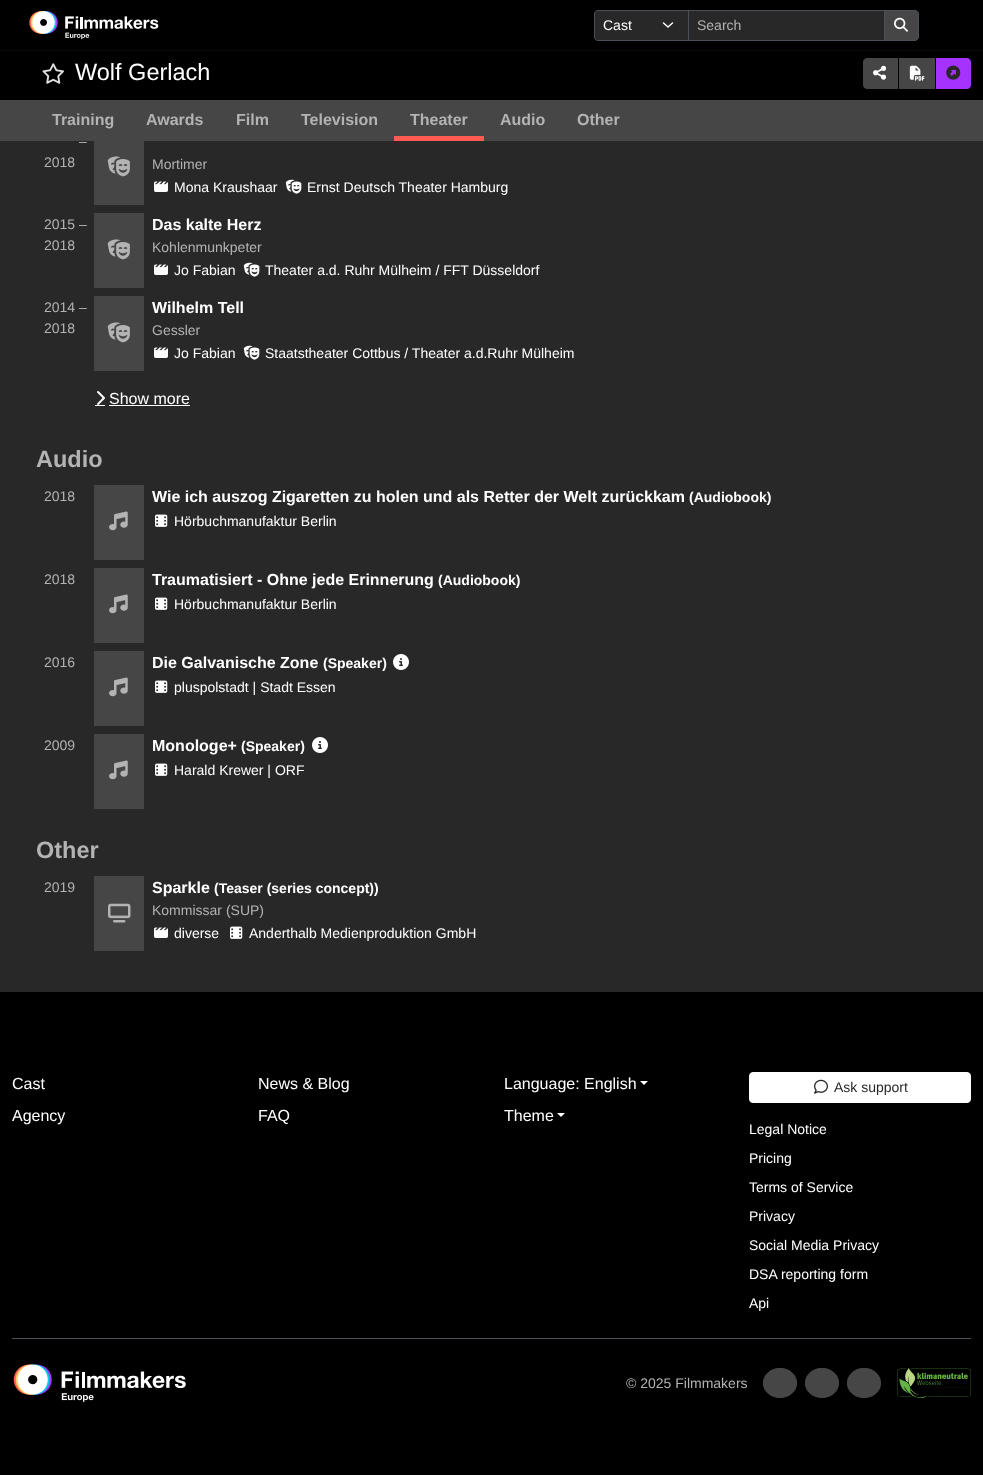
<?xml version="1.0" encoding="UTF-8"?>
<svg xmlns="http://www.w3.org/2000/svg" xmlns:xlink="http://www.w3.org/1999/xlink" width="983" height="1475">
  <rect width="100%" height="100%" fill="#000000" />
  <rect y="50" width="983" height="1" fill="#282828" fill-opacity="0.2" />
  <image x="29" y="11" width="130" height="29" xlink:href="image1.png" />
  <path d="M 598 10 h 91 v 31 h -91 c -2 0 -4 -2 -4 -4 v -23 c 0 -2 2 -4 4 -4 z" fill="#282828" />
  <path d="M 663.5 23 l 4.5 4 l 4.5 -4" fill="none" stroke="#ffffff" stroke-width="1.5" stroke-linecap="round" stroke-linejoin="round" />
  <path d="M 598 10.5 h 90.5 v 30 h -90.5 c -2 0 -3.5 -1.5 -3.5 -3.5 v -23 c 0 -2 1.5 -3.5 3.5 -3.5 z" fill="none" stroke="#495057" />
  <rect x="688.5" y="10.5" width="196" height="30" fill="#282828" stroke="#495057" />
  <path d="M 884.5 10.5 h 30.5 c 2 0 3.5 1.5 3.5 3.5 v 23 c 0 2 -1.5 3.5 -3.5 3.5 h -30.5 z" fill="#464646" stroke="#495057" />
  <image x="894" y="17" width="14" height="15" xlink:href="image2.png" />
  <image x="42" y="63" width="22" height="21" xlink:href="image3.png" />
  <path d="M 867 58.5 h 30.5 v 30 h -30.5 c -2 0 -3.5 -1.5 -3.5 -3.5 v -23 c 0 -2 1.5 -3.5 3.5 -3.5 z" fill="#464646" stroke="#464646" />
  <image x="873" y="65" width="14" height="15" xlink:href="image4.png" />
  <rect x="899" y="58" width="36" height="31" fill="#464646" />
  <image x="909" y="65" width="16" height="16" xlink:href="image5.png" />
  <path d="M 936 58 h 31 c 2 0 4 2 4 4 v 23 c 0 2 -2 4 -4 4 h -31 z" fill="#a532ff" />
  <image x="946" y="65" width="15" height="15" xlink:href="image6.png" />
  <rect y="100" width="983" height="41" fill="#464646" />
  <rect x="394" y="136" width="90" height="5" fill="#fe5c53" />
  <rect y="141" width="983" height="851" fill="#282828" />
  <rect x="94" y="141" width="50" height="64" fill="#464646" />
  <image x="107" y="156" width="23" height="21" xlink:href="image7.png" />
  <image x="154" y="181" width="14" height="11" xlink:href="image8.png" />
  <image x="285" y="179" width="17" height="15" xlink:href="image9.png" />
  <rect x="94" y="213" width="50" height="75" fill="#464646" />
  <image x="107" y="239" width="23" height="21" xlink:href="image7.png" />
  <image x="154" y="264" width="14" height="11" xlink:href="image8.png" />
  <image x="243" y="262" width="17" height="15" xlink:href="image9.png" />
  <rect x="94" y="296" width="50" height="75" fill="#464646" />
  <image x="107" y="322" width="23" height="21" xlink:href="image7.png" />
  <image x="154" y="347" width="14" height="11" xlink:href="image8.png" />
  <image x="243" y="345" width="17" height="15" xlink:href="image9.png" />
  <image x="97" y="391" width="8" height="14" xlink:href="image10.png" />
  <rect x="109" y="405" width="81" height="1" fill="#ffffff" />
  <rect x="95" y="405" width="10" height="1" fill="#ffffff" />
  <rect x="94" y="485" width="50" height="75" fill="#464646" />
  <image x="109" y="511" width="19" height="20" xlink:href="image11.png" />
  <image x="155" y="514" width="13" height="13" xlink:href="image12.png" />
  <rect x="94" y="568" width="50" height="75" fill="#464646" />
  <image x="109" y="594" width="19" height="20" xlink:href="image11.png" />
  <image x="155" y="597" width="13" height="13" xlink:href="image12.png" />
  <rect x="94" y="651" width="50" height="75" fill="#464646" />
  <image x="109" y="677" width="19" height="20" xlink:href="image11.png" />
  <image x="393" y="654" width="16" height="16" xlink:href="image13.png" />
  <image x="155" y="680" width="13" height="13" xlink:href="image12.png" />
  <rect x="94" y="734" width="50" height="75" fill="#464646" />
  <image x="109" y="760" width="19" height="20" xlink:href="image11.png" />
  <image x="312" y="737" width="16" height="16" xlink:href="image13.png" />
  <image x="155" y="763" width="13" height="13" xlink:href="image12.png" />
  <rect x="94" y="876" width="50" height="75" fill="#464646" />
  <image x="108" y="903" width="23" height="20" xlink:href="image14.png" />
  <image x="154" y="927" width="14" height="11" xlink:href="image8.png" />
  <image x="230" y="926" width="13" height="13" xlink:href="image12.png" />
  <path d="M 640 1081 h 8 l -4 4 z" fill="#ffffff" />
  <path d="M 557 1113 h 8 l -4 4 z" fill="#ffffff" />
  <rect x="749.5" y="1072.5" width="221" height="30" rx="3.5" fill="#ffffff" stroke="#ffffff" />
  <image x="814" y="1079" width="14" height="15" xlink:href="image15.png" />
  <rect x="12" y="1338" width="959" height="1" fill="#495057" />
  <image x="13" y="1364" width="173" height="38" xlink:href="image16.png" />
  <ellipse cx="780" cy="1383" rx="17" ry="15" fill="#464646" />
  <path d="M 780 1368.5 c 9 0 16.5 6.5 16.5 14.5 c 0 8 -7.5 14.5 -16.5 14.5 c -9 0 -16.5 -6.5 -16.5 -14.5 c 0 -8 7.5 -14.5 16.5 -14.5 z" fill="none" stroke="#464646" />
  <ellipse cx="822" cy="1383" rx="17" ry="15" fill="#464646" />
  <path d="M 822 1368.5 c 9 0 16.5 6.5 16.5 14.5 c 0 8 -7.5 14.5 -16.5 14.5 c -9 0 -16.5 -6.5 -16.5 -14.5 c 0 -8 7.5 -14.5 16.5 -14.5 z" fill="none" stroke="#464646" />
  <ellipse cx="864" cy="1383" rx="17" ry="15" fill="#464646" />
  <path d="M 864 1368.5 c 9 0 16.5 6.5 16.5 14.5 c 0 8 -7.5 14.5 -16.5 14.5 c -9 0 -16.5 -6.5 -16.5 -14.5 c 0 -8 7.5 -14.5 16.5 -14.5 z" fill="none" stroke="#464646" />
  <image x="897" y="1368" width="74" height="30" xlink:href="image17.png" />
  <text x="603" y="30" style="font-family: Liberation Sans; font-size: 14px; fill: #ffffff">Cast</text>
  <text x="697" y="30" style="font-family: Liberation Sans; font-size: 14px; fill: #b3b3b3">Search</text>
  <text x="75" y="80" style="font-family: Liberation Sans; font-size: 23.5px; fill: #ffffff">Wolf Gerlach</text>
  <text x="52" y="125" style="font-family: Liberation Sans; font-size: 16px; font-weight: bold; fill: #b3b3b3">Training</text>
  <text x="146" y="125" style="font-family: Liberation Sans; font-size: 16px; font-weight: bold; fill: #b3b3b3">Awards</text>
  <text x="236" y="125" style="font-family: Liberation Sans; font-size: 16px; font-weight: bold; fill: #b3b3b3">Film</text>
  <text x="301" y="125" style="font-family: Liberation Sans; font-size: 16px; font-weight: bold; fill: #b3b3b3">Television</text>
  <text x="410" y="125" style="font-family: Liberation Sans; font-size: 16px; font-weight: bold; fill: #b3b3b3">Theater</text>
  <text x="500" y="125" style="font-family: Liberation Sans; font-size: 16px; font-weight: bold; fill: #b3b3b3">Audio</text>
  <text x="577" y="125" style="font-family: Liberation Sans; font-size: 16px; font-weight: bold; fill: #b3b3b3">Other</text>
  <text x="79" y="146" style="font-family: Liberation Sans; font-size: 14px; fill: #b3b3b3">–</text>
  <text x="44" y="167" style="font-family: Liberation Sans; font-size: 14px; fill: #b3b3b3">2018</text>
  <text x="152" y="169" style="font-family: Liberation Sans; font-size: 14px; fill: #b3b3b3">Mortimer</text>
  <text x="174" y="192" style="font-family: Liberation Sans; font-size: 14px; fill: #ffffff">Mona Kraushaar</text>
  <text x="307" y="192" style="font-family: Liberation Sans; font-size: 14px; fill: #ffffff">Ernst Deutsch Theater Hamburg</text>
  <text x="44" y="229" style="font-family: Liberation Sans; font-size: 14px; fill: #b3b3b3">2015 –</text>
  <text x="44" y="250" style="font-family: Liberation Sans; font-size: 14px; fill: #b3b3b3">2018</text>
  <text x="152" y="230" style="font-family: Liberation Sans; font-size: 16px; font-weight: bold; fill: #ffffff">Das kalte Herz</text>
  <text x="152" y="252" style="font-family: Liberation Sans; font-size: 14px; fill: #b3b3b3">Kohlenmunkpeter</text>
  <text x="174" y="275" style="font-family: Liberation Sans; font-size: 14px; fill: #ffffff">Jo Fabian</text>
  <text x="265" y="275" style="font-family: Liberation Sans; font-size: 14px; fill: #ffffff">Theater a.d. Ruhr Mülheim / FFT Düsseldorf</text>
  <text x="44" y="312" style="font-family: Liberation Sans; font-size: 14px; fill: #b3b3b3">2014 –</text>
  <text x="44" y="333" style="font-family: Liberation Sans; font-size: 14px; fill: #b3b3b3">2018</text>
  <text x="152" y="313" style="font-family: Liberation Sans; font-size: 16px; font-weight: bold; fill: #ffffff">Wilhelm Tell</text>
  <text x="152" y="335" style="font-family: Liberation Sans; font-size: 14px; fill: #b3b3b3">Gessler</text>
  <text x="174" y="358" style="font-family: Liberation Sans; font-size: 14px; fill: #ffffff">Jo Fabian</text>
  <text x="265" y="358" style="font-family: Liberation Sans; font-size: 14px; fill: #ffffff">Staatstheater Cottbus / Theater a.d.Ruhr Mülheim</text>
  <text x="109" y="404" style="font-family: Liberation Sans; font-size: 16px; fill: #ffffff">Show more</text>
  <text x="36" y="467" style="font-family: Liberation Sans; font-size: 23.5px; font-weight: bold; fill: #b3b3b3">Audio</text>
  <text x="44" y="501" style="font-family: Liberation Sans; font-size: 14px; fill: #b3b3b3">2018</text>
  <text x="152" y="502" style="font-family: Liberation Sans; font-size: 16px; font-weight: bold; fill: #ffffff">Wie ich auszog Zigaretten zu holen und als Retter der Welt zurückkam</text>
  <text x="689" y="502" style="font-family: Liberation Sans; font-size: 14px; font-weight: bold; fill: #ffffff">(Audiobook)</text>
  <text x="174" y="526" style="font-family: Liberation Sans; font-size: 14px; fill: #ffffff">Hörbuchmanufaktur Berlin</text>
  <text x="44" y="584" style="font-family: Liberation Sans; font-size: 14px; fill: #b3b3b3">2018</text>
  <text x="152" y="585" style="font-family: Liberation Sans; font-size: 16px; font-weight: bold; fill: #ffffff">Traumatisiert - Ohne jede Erinnerung</text>
  <text x="438" y="585" style="font-family: Liberation Sans; font-size: 14px; font-weight: bold; fill: #ffffff">(Audiobook)</text>
  <text x="174" y="609" style="font-family: Liberation Sans; font-size: 14px; fill: #ffffff">Hörbuchmanufaktur Berlin</text>
  <text x="44" y="667" style="font-family: Liberation Sans; font-size: 14px; fill: #b3b3b3">2016</text>
  <text x="152" y="668" style="font-family: Liberation Sans; font-size: 16px; font-weight: bold; fill: #ffffff">Die Galvanische Zone</text>
  <text x="323" y="668" style="font-family: Liberation Sans; font-size: 14px; font-weight: bold; fill: #ffffff">(Speaker)</text>
  <text x="174" y="692" style="font-family: Liberation Sans; font-size: 14px; fill: #ffffff">pluspolstadt | Stadt Essen</text>
  <text x="44" y="750" style="font-family: Liberation Sans; font-size: 14px; fill: #b3b3b3">2009</text>
  <text x="152" y="751" style="font-family: Liberation Sans; font-size: 16px; font-weight: bold; fill: #ffffff">Monologe+</text>
  <text x="241" y="751" style="font-family: Liberation Sans; font-size: 14px; font-weight: bold; fill: #ffffff">(Speaker)</text>
  <text x="174" y="775" style="font-family: Liberation Sans; font-size: 14px; fill: #ffffff">Harald Krewer | ORF</text>
  <text x="36" y="858" style="font-family: Liberation Sans; font-size: 23.5px; font-weight: bold; fill: #b3b3b3">Other</text>
  <text x="44" y="892" style="font-family: Liberation Sans; font-size: 14px; fill: #b3b3b3">2019</text>
  <text x="152" y="893" style="font-family: Liberation Sans; font-size: 16px; font-weight: bold; fill: #ffffff">Sparkle</text>
  <text x="214" y="893" style="font-family: Liberation Sans; font-size: 14px; font-weight: bold; fill: #ffffff">(Teaser (series concept))</text>
  <text x="152" y="915" style="font-family: Liberation Sans; font-size: 14px; fill: #b3b3b3">Kommissar (SUP)</text>
  <text x="174" y="938" style="font-family: Liberation Sans; font-size: 14px; fill: #ffffff">diverse</text>
  <text x="249" y="938" style="font-family: Liberation Sans; font-size: 14px; fill: #ffffff">Anderthalb Medienproduktion GmbH</text>
  <text x="12" y="1089" style="font-family: Liberation Sans; font-size: 16px; fill: #ffffff">Cast</text>
  <text x="12" y="1121" style="font-family: Liberation Sans; font-size: 16px; fill: #ffffff">Agency</text>
  <text x="258" y="1089" style="font-family: Liberation Sans; font-size: 16px; fill: #ffffff">News &amp; Blog</text>
  <text x="258" y="1121" style="font-family: Liberation Sans; font-size: 16px; fill: #ffffff">FAQ</text>
  <text x="504" y="1089" style="font-family: Liberation Sans; font-size: 16px; fill: #ffffff">Language: English</text>
  <text x="504" y="1121" style="font-family: Liberation Sans; font-size: 16px; fill: #ffffff">Theme</text>
  <text x="834" y="1092" style="font-family: Liberation Sans; font-size: 14px; fill: #282828">Ask support</text>
  <text x="749" y="1134" style="font-family: Liberation Sans; font-size: 14px; fill: #ffffff">Legal Notice</text>
  <text x="749" y="1163" style="font-family: Liberation Sans; font-size: 14px; fill: #ffffff">Pricing</text>
  <text x="749" y="1192" style="font-family: Liberation Sans; font-size: 14px; fill: #ffffff">Terms of Service</text>
  <text x="749" y="1221" style="font-family: Liberation Sans; font-size: 14px; fill: #ffffff">Privacy</text>
  <text x="749" y="1250" style="font-family: Liberation Sans; font-size: 14px; fill: #ffffff">Social Media Privacy</text>
  <text x="749" y="1279" style="font-family: Liberation Sans; font-size: 14px; fill: #ffffff">DSA reporting form</text>
  <text x="749" y="1308" style="font-family: Liberation Sans; font-size: 14px; fill: #ffffff">Api</text>
  <text x="626" y="1388" style="font-family: Liberation Sans; font-size: 14px; fill: #b3b3b3">© 2025 Filmmakers</text>
</svg>
